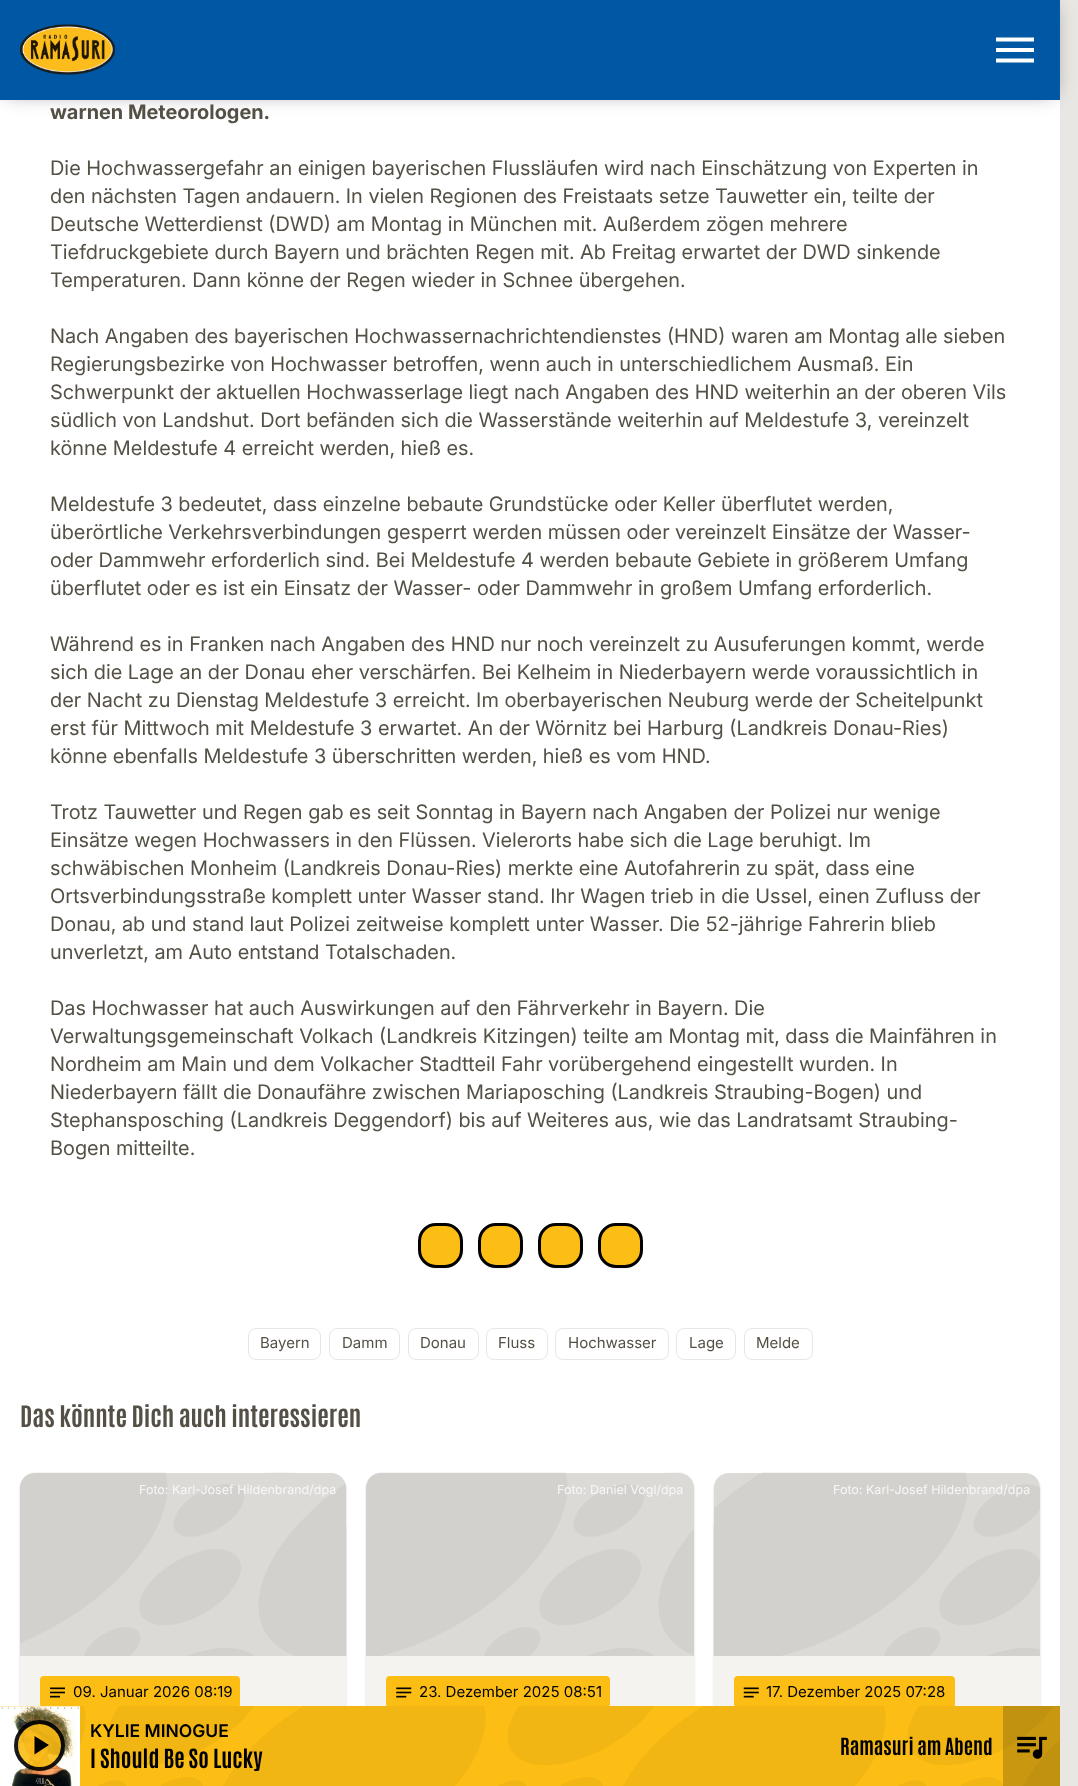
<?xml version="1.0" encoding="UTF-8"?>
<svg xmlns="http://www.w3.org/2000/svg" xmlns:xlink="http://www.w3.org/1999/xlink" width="1078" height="1786">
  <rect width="100%" height="100%" fill="#e8e7e3" />
  <rect y="100" width="1060" height="1606" fill="#ffffff" />
  <rect x="6" y="6" width="1048" height="88" fill="#000000" fill-opacity="0.4" filter="blur(9.5px)" />
  <rect width="1060" height="100" fill="#0058a4" />
  <image x="20" y="24" width="95" height="51" xlink:href="image1.png" />
  <path d="M 996 62.5 h 38 v -4 h -38 z m 0 -10.5 h 38 v -4 h -38 z m 0 -14.5 v 4 h 38 v -4 z" fill="#ffffff" />
  <rect x="420" y="1228" width="40" height="40" rx="15" fill="#3d3829" fill-opacity="0.2" filter="blur(1px)" />
  <rect x="419.5" y="1224.5" width="42" height="42" rx="16.5" fill="#fcbe15" stroke="#000000" stroke-width="3" />
  <rect x="480" y="1228" width="40" height="40" rx="15" fill="#3d3829" fill-opacity="0.2" filter="blur(1px)" />
  <rect x="479.5" y="1224.5" width="42" height="42" rx="16.5" fill="#fcbe15" stroke="#000000" stroke-width="3" />
  <rect x="540" y="1228" width="40" height="40" rx="15" fill="#3d3829" fill-opacity="0.2" filter="blur(1px)" />
  <rect x="539.5" y="1224.5" width="42" height="42" rx="16.5" fill="#fcbe15" stroke="#000000" stroke-width="3" />
  <rect x="600" y="1228" width="40" height="40" rx="15" fill="#3d3829" fill-opacity="0.2" filter="blur(1px)" />
  <rect x="599.5" y="1224.5" width="42" height="42" rx="16.5" fill="#fcbe15" stroke="#000000" stroke-width="3" />
  <rect x="248.5" y="1328.5" width="72" height="31" rx="7.5" fill="none" stroke="#e8e7e3" />
  <rect x="329.5" y="1328.5" width="70" height="31" rx="7.5" fill="none" stroke="#e8e7e3" />
  <rect x="408.5" y="1328.5" width="70" height="31" rx="7.5" fill="none" stroke="#e8e7e3" />
  <rect x="486.5" y="1328.5" width="61" height="31" rx="7.5" fill="none" stroke="#e8e7e3" />
  <rect x="555.5" y="1328.5" width="113" height="31" rx="7.5" fill="none" stroke="#e8e7e3" />
  <rect x="676.5" y="1328.5" width="59" height="31" rx="7.5" fill="none" stroke="#e8e7e3" />
  <rect x="744.5" y="1328.5" width="68" height="31" rx="7.5" fill="none" stroke="#e8e7e3" />
  <rect x="20" y="1475" width="326" height="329" rx="15" fill="#3d3829" fill-opacity="0.2" filter="blur(1px)" />
  <rect x="20" y="1473" width="326" height="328" rx="15" fill="#f5f3f0" />
  <path d="M 35 1473 h 296 c 8.5 0 15 6.5 15 15 v 168 h -326 v -168 c 0 -8.5 6.5 -15 15 -15 z" fill="#000000" fill-opacity="0.1" />
  <image x="20" y="1472" width="327" height="184" xlink:href="image2.png" />
  <rect x="40" y="1676" width="200" height="32" rx="4" fill="#fcbe15" />
  <image x="50" y="1687" width="15" height="11" xlink:href="image3.png" />
  <rect x="366" y="1475" width="328" height="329" rx="15" fill="#3d3829" fill-opacity="0.2" filter="blur(1px)" />
  <rect x="366" y="1473" width="328" height="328" rx="15" fill="#f5f3f0" />
  <path d="M 381 1473 h 298 c 8.5 0 15 6.5 15 15 v 168 h -328 v -168 c 0 -8.5 6.5 -15 15 -15 z" fill="#000000" fill-opacity="0.1" />
  <image x="366" y="1472" width="328" height="184" xlink:href="image4.png" />
  <rect x="386" y="1676" width="224" height="32" rx="4" fill="#fcbe15" />
  <image x="396" y="1687" width="16" height="11" xlink:href="image5.png" />
  <rect x="714" y="1475" width="326" height="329" rx="15" fill="#3d3829" fill-opacity="0.2" filter="blur(1px)" />
  <rect x="714" y="1473" width="326" height="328" rx="15" fill="#f5f3f0" />
  <path d="M 729 1473 h 296 c 8.5 0 15 6.5 15 15 v 168 h -326 v -168 c 0 -8.5 6.5 -15 15 -15 z" fill="#000000" fill-opacity="0.1" />
  <image x="713" y="1472" width="327" height="184" xlink:href="image6.png" />
  <rect x="734" y="1676" width="221" height="32" rx="4" fill="#fcbe15" />
  <image x="743" y="1687" width="16" height="11" xlink:href="image7.png" />
  <rect y="1706" width="1060" height="80" fill="#fcbe15" />
  <image x="0" y="1706" width="1060" height="80" xlink:href="image8.png" />
  <image x="0" y="1706" width="80" height="80" xlink:href="image9.png" />
  <rect x="1003" y="1706" width="57" height="80" fill="#000000" fill-opacity="0.2" />
  <image x="1017" y="1736" width="30" height="23" xlink:href="image10.png" />
  <rect x="18" y="1724" width="43" height="44" rx="21.5" fill="#fcbe15" fill-opacity="0.9" />
  <circle cx="39.5" cy="1745.5" r="23.5" fill="none" stroke="#000000" stroke-opacity="0.9" stroke-width="4" />
  <path d="M 34.5 1736 v 18.5 l 14.5 -9.5 z" fill="#000000" />
  <text x="50" y="119" style="font-family: Inter; font-size: 20px; font-weight: bold; fill: #545045">warnen Meteorologen.</text>
  <text x="50" y="175" style="font-family: Inter; font-size: 20px; fill: #545045">Die Hochwassergefahr an einigen bayerischen Flussläufen wird nach Einschätzung von Experten in</text>
  <text x="50" y="203" style="font-family: Inter; font-size: 20px; fill: #545045">den nächsten Tagen andauern. In vielen Regionen des Freistaats setze Tauwetter ein, teilte der</text>
  <text x="50" y="231" style="font-family: Inter; font-size: 20px; fill: #545045">Deutsche Wetterdienst (DWD) am Montag in München mit. Außerdem zögen mehrere</text>
  <text x="50" y="259" style="font-family: Inter; font-size: 20px; fill: #545045">Tiefdruckgebiete durch Bayern und brächten Regen mit. Ab Freitag erwartet der DWD sinkende</text>
  <text x="50" y="287" style="font-family: Inter; font-size: 20px; fill: #545045">Temperaturen. Dann könne der Regen wieder in Schnee übergehen.</text>
  <text x="50" y="343" style="font-family: Inter; font-size: 20px; fill: #545045">Nach Angaben des bayerischen Hochwassernachrichtendienstes (HND) waren am Montag alle sieben</text>
  <text x="50" y="371" style="font-family: Inter; font-size: 20px; fill: #545045">Regierungsbezirke von Hochwasser betroffen, wenn auch in unterschiedlichem Ausmaß. Ein</text>
  <text x="50" y="399" style="font-family: Inter; font-size: 20px; fill: #545045">Schwerpunkt der aktuellen Hochwasserlage liegt nach Angaben des HND weiterhin an der oberen Vils</text>
  <text x="50" y="427" style="font-family: Inter; font-size: 20px; fill: #545045">südlich von Landshut. Dort befänden sich die Wasserstände weiterhin auf Meldestufe 3, vereinzelt</text>
  <text x="50" y="455" style="font-family: Inter; font-size: 20px; fill: #545045">könne Meldestufe 4 erreicht werden, hieß es.</text>
  <text x="50" y="511" style="font-family: Inter; font-size: 20px; fill: #545045">Meldestufe 3 bedeutet, dass einzelne bebaute Grundstücke oder Keller überflutet werden,</text>
  <text x="50" y="539" style="font-family: Inter; font-size: 20px; fill: #545045">überörtliche Verkehrsverbindungen gesperrt werden müssen oder vereinzelt Einsätze der Wasser-</text>
  <text x="50" y="567" style="font-family: Inter; font-size: 20px; fill: #545045">oder Dammwehr erforderlich sind. Bei Meldestufe 4 werden bebaute Gebiete in größerem Umfang</text>
  <text x="50" y="595" style="font-family: Inter; font-size: 20px; fill: #545045">überflutet oder es ist ein Einsatz der Wasser- oder Dammwehr in großem Umfang erforderlich.</text>
  <text x="50" y="651" style="font-family: Inter; font-size: 20px; fill: #545045">Während es in Franken nach Angaben des HND nur noch vereinzelt zu Ausuferungen kommt, werde</text>
  <text x="50" y="679" style="font-family: Inter; font-size: 20px; fill: #545045">sich die Lage an der Donau eher verschärfen. Bei Kelheim in Niederbayern werde voraussichtlich in</text>
  <text x="50" y="707" style="font-family: Inter; font-size: 20px; fill: #545045">der Nacht zu Dienstag Meldestufe 3 erreicht. Im oberbayerischen Neuburg werde der Scheitelpunkt</text>
  <text x="50" y="735" style="font-family: Inter; font-size: 20px; fill: #545045">erst für Mittwoch mit Meldestufe 3 erwartet. An der Wörnitz bei Harburg (Landkreis Donau-Ries)</text>
  <text x="50" y="763" style="font-family: Inter; font-size: 20px; fill: #545045">könne ebenfalls Meldestufe 3 überschritten werden, hieß es vom HND.</text>
  <text x="50" y="819" style="font-family: Inter; font-size: 20px; fill: #545045">Trotz Tauwetter und Regen gab es seit Sonntag in Bayern nach Angaben der Polizei nur wenige</text>
  <text x="50" y="847" style="font-family: Inter; font-size: 20px; fill: #545045">Einsätze wegen Hochwassers in den Flüssen. Vielerorts habe sich die Lage beruhigt. Im</text>
  <text x="50" y="875" style="font-family: Inter; font-size: 20px; fill: #545045">schwäbischen Monheim (Landkreis Donau-Ries) merkte eine Autofahrerin zu spät, dass eine</text>
  <text x="50" y="903" style="font-family: Inter; font-size: 20px; fill: #545045">Ortsverbindungsstraße komplett unter Wasser stand. Ihr Wagen trieb in die Ussel, einen Zufluss der</text>
  <text x="50" y="931" style="font-family: Inter; font-size: 20px; fill: #545045">Donau, ab und stand laut Polizei zeitweise komplett unter Wasser. Die 52-jährige Fahrerin blieb</text>
  <text x="50" y="959" style="font-family: Inter; font-size: 20px; fill: #545045">unverletzt, am Auto entstand Totalschaden.</text>
  <text x="50" y="1015" style="font-family: Inter; font-size: 20px; fill: #545045">Das Hochwasser hat auch Auswirkungen auf den Fährverkehr in Bayern. Die</text>
  <text x="50" y="1043" style="font-family: Inter; font-size: 20px; fill: #545045">Verwaltungsgemeinschaft Volkach (Landkreis Kitzingen) teilte am Montag mit, dass die Mainfähren in</text>
  <text x="50" y="1071" style="font-family: Inter; font-size: 20px; fill: #545045">Nordheim am Main und dem Volkacher Stadtteil Fahr vorübergehend eingestellt wurden. In</text>
  <text x="50" y="1099" style="font-family: Inter; font-size: 20px; fill: #545045">Niederbayern fällt die Donaufähre zwischen Mariaposching (Landkreis Straubing-Bogen) und</text>
  <text x="50" y="1127" style="font-family: Inter; font-size: 20px; fill: #545045">Stephansposching (Landkreis Deggendorf) bis auf Weiteres aus, wie das Landratsamt Straubing-</text>
  <text x="50" y="1155" style="font-family: Inter; font-size: 20px; fill: #545045">Bogen mitteilte.</text>
  <text x="260" y="1348" style="font-family: 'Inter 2'; font-size: 15px; fill: #545045">Bayern</text>
  <text x="342" y="1348" style="font-family: 'Inter 2'; font-size: 15px; fill: #545045">Damm</text>
  <text x="420" y="1348" style="font-family: 'Inter 2'; font-size: 15px; fill: #545045">Donau</text>
  <text x="498" y="1348" style="font-family: 'Inter 2'; font-size: 15px; fill: #545045">Fluss</text>
  <text x="568" y="1348" style="font-family: 'Inter 2'; font-size: 15px; fill: #545045">Hochwasser</text>
  <text x="689" y="1348" style="font-family: 'Inter 2'; font-size: 15px; fill: #545045">Lage</text>
  <text x="756" y="1348" style="font-family: 'Inter 2'; font-size: 15px; fill: #545045">Melde</text>
  <text x="20" y="1427" style="font-family: Antonio; font-size: 25px; font-weight: bold; fill: #545045">Das könnte Dich auch interessieren</text>
  <text x="139" y="1494" style="font-family: 'Inter 2'; font-size: 12.5px; fill: #f8f7f7">Foto: Karl-Josef Hildenbrand/dpa</text>
  <text x="73" y="1697" style="font-family: 'Inter 2'; font-size: 15px; fill: #000000">09. Januar 2026 08:19</text>
  <text x="557" y="1494" style="font-family: 'Inter 2'; font-size: 12.5px; fill: #f8f7f7">Foto: Daniel Vogl/dpa</text>
  <text x="419" y="1697" style="font-family: 'Inter 2'; font-size: 15px; fill: #000000">23. Dezember 2025 08:51</text>
  <text x="833" y="1494" style="font-family: 'Inter 2'; font-size: 12.5px; fill: #f8f7f7">Foto: Karl-Josef Hildenbrand/dpa</text>
  <text x="766" y="1697" style="font-family: 'Inter 2'; font-size: 15px; fill: #000000">17. Dezember 2025 07:28</text>
  <text x="90" y="1737" style="font-family: Inter; font-size: 17.5px; font-weight: 600; fill: #000000">KYLIE MINOGUE</text>
  <text x="90" y="1768" style="font-family: Antonio; font-size: 22.5px; font-weight: bold; fill: #000000">I Should Be So Lucky</text>
  <text x="840" y="1755" style="font-family: Antonio; font-size: 20px; font-weight: bold; fill: #000000">Ramasuri am Abend</text>
</svg>
